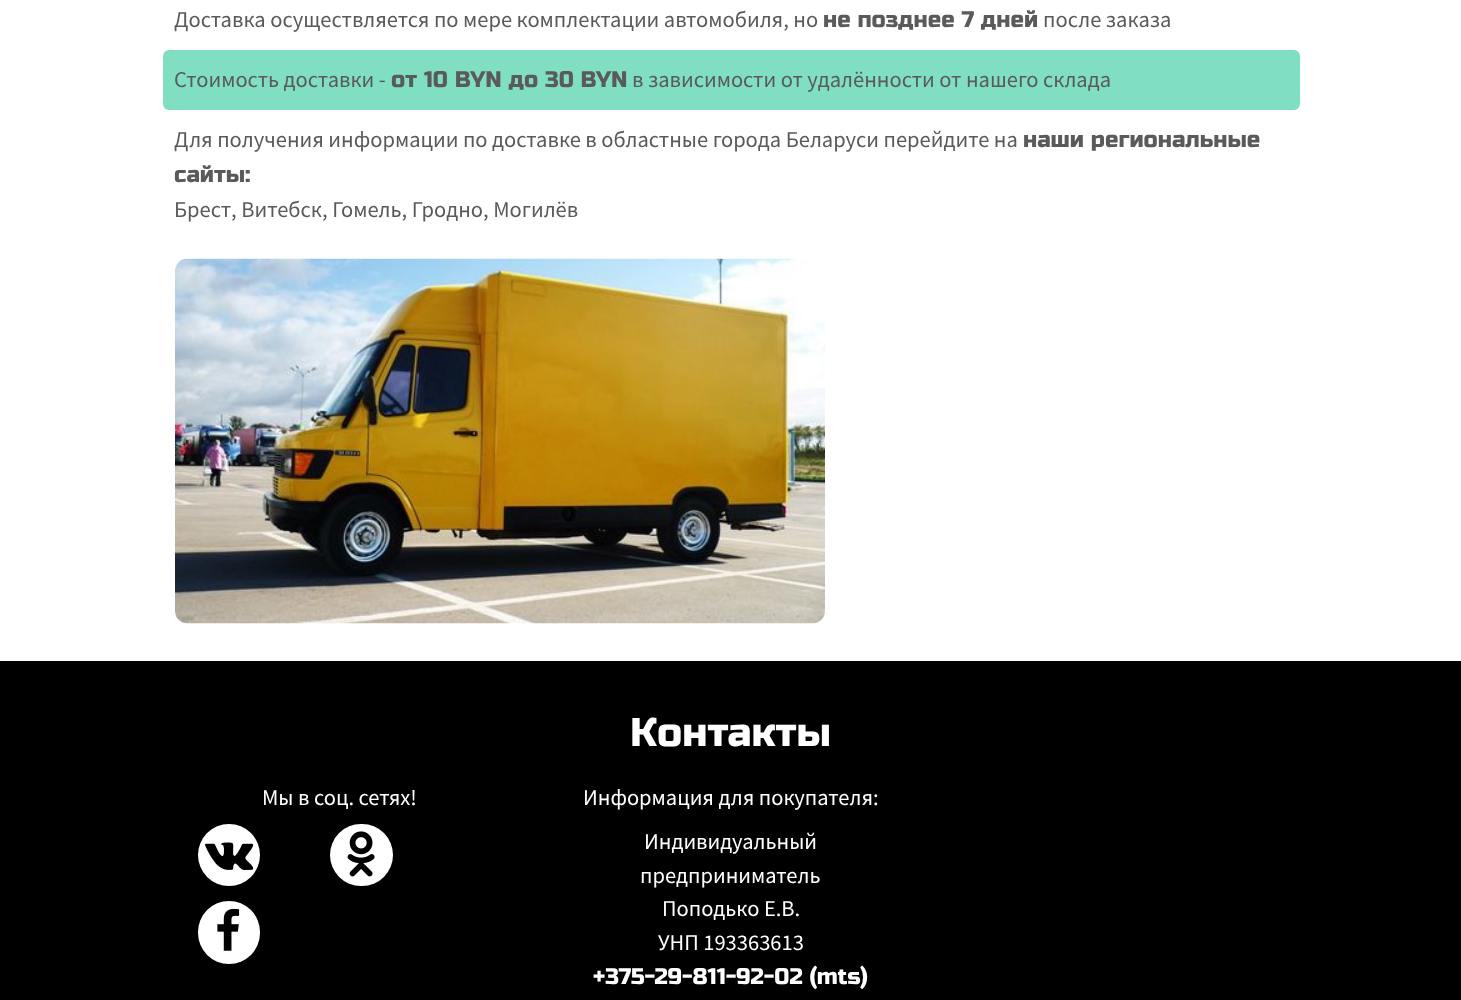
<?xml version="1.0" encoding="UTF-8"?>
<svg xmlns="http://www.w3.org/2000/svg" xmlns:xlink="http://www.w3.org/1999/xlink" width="1461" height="1000">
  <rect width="100%" height="100%" fill="#ffffff" />
  <rect x="163" y="50" width="1137" height="60" rx="6" fill="#80dfc3" />
  <image x="175" y="258" width="650" height="366" xlink:href="image1.png" />
  <rect y="661" width="1461" height="339" fill="#000000" />
  <circle cx="229" cy="855" r="31" fill="#ffffff" />
  <image x="205" y="842" width="49" height="28" xlink:href="image2.png" />
  <rect x="330" y="824" width="63" height="62" rx="31" fill="#ffffff" />
  <image x="347" y="831" width="28" height="46" xlink:href="image3.png" />
  <rect x="198" y="901" width="62" height="63" rx="31" fill="#ffffff" />
  <image x="217" y="908" width="23" height="43" xlink:href="image4.png" />
  <text x="174" y="27" style="font-family: Source Sans Pro; font-size: 22.5px; fill: #5a5a5a">Доставка осуществляется по мере комплектации автомобиля, но</text>
  <text x="823" y="27" style="font-family: Russo One; font-size: 22.5px; fill: #5a5a5a">не позднее 7 дней</text>
  <text x="1043" y="27" style="font-family: Source Sans Pro; font-size: 22.5px; fill: #5a5a5a">после заказа</text>
  <text x="174" y="87" style="font-family: Source Sans Pro; font-size: 22.5px; fill: #5a5a5a">Стоимость доставки -</text>
  <text x="391" y="87" style="font-family: Russo One; font-size: 22.5px; fill: #5a5a5a">от 10 BYN до 30 BYN</text>
  <text x="632" y="87" style="font-family: Source Sans Pro; font-size: 22.5px; fill: #5a5a5a">в зависимости от удалённости от нашего склада</text>
  <text x="174" y="147" style="font-family: Source Sans Pro; font-size: 22.5px; fill: #5a5a5a">Для получения информации по доставке в областные города Беларуси перейдите на</text>
  <text x="1023" y="147" style="font-family: Russo One; font-size: 22.5px; fill: #5a5a5a">наши региональные</text>
  <text x="174" y="182" style="font-family: Russo One; font-size: 22.5px; fill: #5a5a5a">сайты:</text>
  <text x="174" y="217" style="font-family: Source Sans Pro; font-size: 22.5px; fill: #5a5a5a">Брест, Витебск, Гомель, Гродно, Могилёв</text>
  <text x="630" y="746" style="font-family: Russo One; font-size: 40px; fill: #ffffff">Контакты</text>
  <text x="262" y="805" style="font-family: Source Sans Pro; font-size: 22.5px; fill: #ffffff">Мы в соц. сетях!</text>
  <text x="583" y="805" style="font-family: Source Sans Pro; font-size: 22.5px; fill: #ffffff">Информация для покупателя:</text>
  <text x="644" y="849" style="font-family: Source Sans Pro; font-size: 22.5px; fill: #ffffff">Индивидуальный</text>
  <text x="640" y="883" style="font-family: Source Sans Pro; font-size: 22.5px; fill: #ffffff">предприниматель</text>
  <text x="662" y="916" style="font-family: Source Sans Pro; font-size: 22.5px; fill: #ffffff">Поподько Е.В.</text>
  <text x="658" y="950" style="font-family: Source Sans Pro; font-size: 22.5px; fill: #ffffff">УНП 193363613</text>
  <text x="593" y="984" style="font-family: Russo One; font-size: 22.5px; fill: #ffffff">+375-29-811-92-02 (mts)</text>
</svg>
